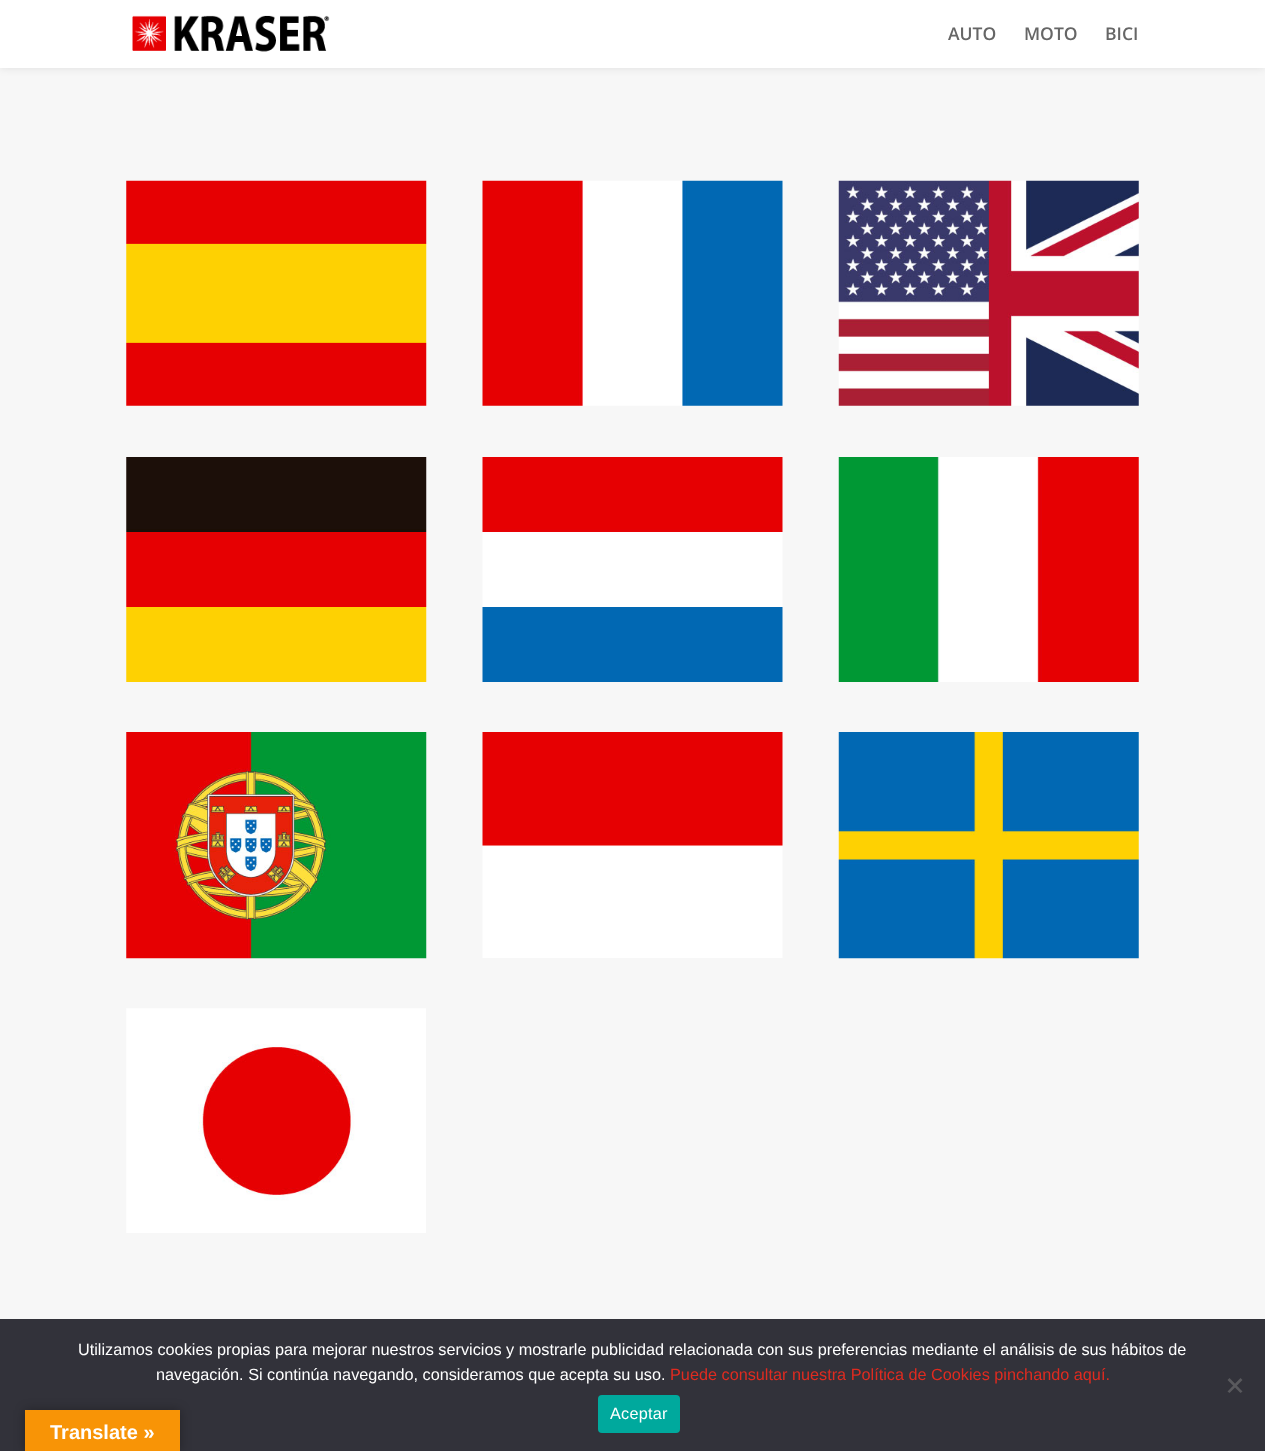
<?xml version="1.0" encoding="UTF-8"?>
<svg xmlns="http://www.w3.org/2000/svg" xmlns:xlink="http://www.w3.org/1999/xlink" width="1265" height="1451">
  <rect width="100%" height="100%" fill="#f7f7f7" />
  <rect width="1265" height="68" fill="#000000" fill-opacity="0.1" filter="blur(4.5px)" />
  <rect width="1265" height="68" fill="#ffffff" />
  <image x="132" y="15" width="198" height="37" xlink:href="image1.png" />
  <image x="126" y="180" width="301" height="226" xlink:href="image2.png" />
  <image x="482" y="180" width="301" height="226" xlink:href="image3.png" />
  <image x="838" y="180" width="301" height="226" xlink:href="image4.png" />
  <image x="126" y="457" width="301" height="225" xlink:href="image5.png" />
  <image x="482" y="457" width="301" height="225" xlink:href="image6.png" />
  <image x="838" y="457" width="301" height="225" xlink:href="image7.png" />
  <image x="126" y="732" width="301" height="227" xlink:href="image8.png" />
  <image x="482" y="732" width="301" height="226" xlink:href="image9.png" />
  <image x="838" y="732" width="301" height="227" xlink:href="image10.png" />
  <image x="126" y="1008" width="300" height="225" xlink:href="image11.png" />
  <rect y="1319" width="1265" height="132" fill="#32323a" />
  <path d="M 1240.5 1378 l 2 2 l -13 13 l -2 -1.5 z" fill="#59595d" />
  <path d="M 1227.5 1380 l 2 -2 l 13 13.5 l -2 1.5 z" fill="#59595d" />
  <rect x="598" y="1395" width="82" height="38" rx="4" fill="#00a99d" />
  <rect x="25" y="1410" width="155" height="41" fill="#000000" fill-opacity="0.3" filter="blur(5.5px)" />
  <rect x="25" y="1410" width="155" height="41" fill="#f89406" />
  <text x="948" y="40" style="font-family: Open Sans; font-size: 17.5px; font-weight: 600; fill: #666666">AUTO</text>
  <text x="1024" y="40" style="font-family: Open Sans; font-size: 17.5px; font-weight: 600; fill: #666666">MOTO</text>
  <text x="1105" y="40" style="font-family: Open Sans; font-size: 17.5px; font-weight: 600; fill: #666666">BICI</text>
  <text x="78" y="1355" style="font-family: Liberation Sans; font-size: 16.25px; fill: #ffffff">Utilizamos cookies propias para mejorar nuestros servicios y mostrarle publicidad relacionada con sus preferencias mediante el análisis de sus hábitos de</text>
  <text x="156" y="1380" style="font-family: Liberation Sans; font-size: 16.25px; fill: #ffffff">navegación. Si continúa navegando, consideramos que acepta su uso.</text>
  <text x="670" y="1380" style="font-family: Liberation Sans; font-size: 16.25px; fill: #e02b20">Puede consultar nuestra Política de Cookies pinchando aquí.</text>
  <text x="610" y="1419" style="font-family: Liberation Sans; font-size: 16.25px; letter-spacing: 0.25px; fill: #ffffff">Aceptar</text>
  <text x="50" y="1439" style="font-family: Liberation Sans; font-size: 20px; font-weight: bold; fill: #ffffff">Translate »</text>
</svg>
